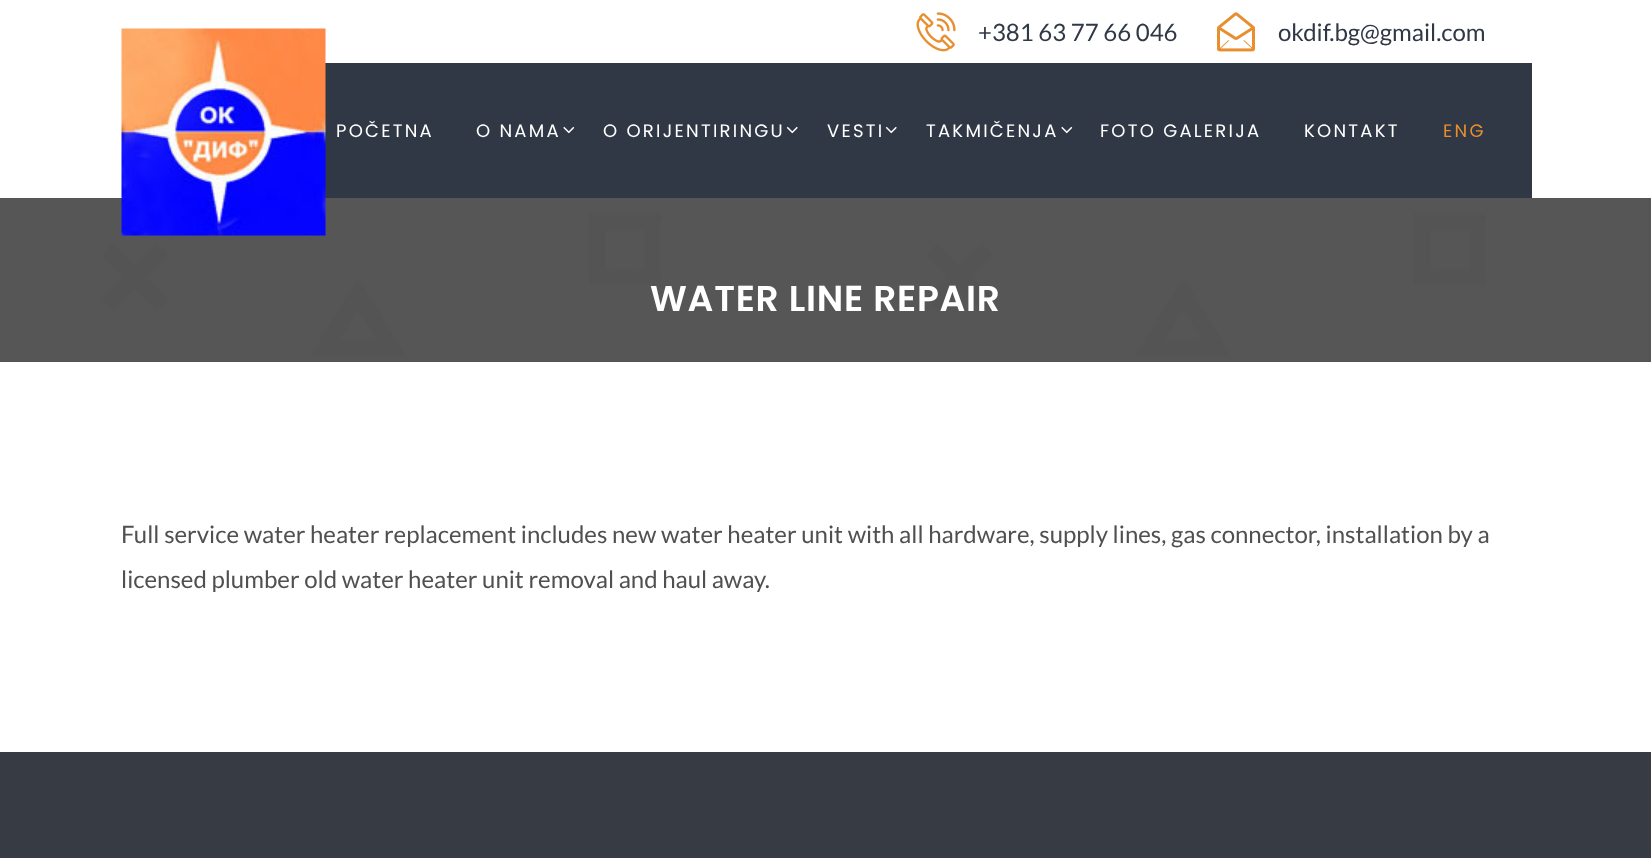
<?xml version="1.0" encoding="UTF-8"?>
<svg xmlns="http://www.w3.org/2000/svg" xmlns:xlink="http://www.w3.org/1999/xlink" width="1651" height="858">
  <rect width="100%" height="100%" fill="#ffffff" />
  <image x="916" y="12" width="40" height="40" xlink:href="image1.png" />
  <image x="1217" y="12" width="38" height="40" xlink:href="image2.png" />
  <rect x="325" y="63" width="1207" height="135" fill="#303745" />
  <rect y="361" width="1651" height="1" fill="#515151" />
  <image x="0" y="198" width="1651" height="164" xlink:href="image6.png" />
  <image x="121" y="28" width="205" height="208" xlink:href="image3.png" />
  <image x="563" y="126" width="12" height="8" xlink:href="image4.png" />
  <image x="786" y="126" width="12" height="8" xlink:href="image5.png" />
  <image x="885" y="126" width="12" height="8" xlink:href="image5.png" />
  <image x="1061" y="126" width="12" height="8" xlink:href="image4.png" />
  <rect y="752" width="1651" height="106" fill="#373c44" />
  <text x="978" y="41" style="font-family: Lato; font-size: 24px; fill: #303745">+381 63 77 66 046</text>
  <text x="1278" y="41" style="font-family: Lato; font-size: 24px; fill: #303745">okdif.bg@gmail.com</text>
  <text x="336" y="137" style="font-family: Poppins; font-size: 18px; letter-spacing: 2.25px; fill: #ffffff">POČETNA</text>
  <text x="476" y="137" style="font-family: Poppins; font-size: 18px; letter-spacing: 2.25px; fill: #ffffff">O NAMA</text>
  <text x="603" y="137" style="font-family: Poppins; font-size: 18px; letter-spacing: 2.25px; fill: #ffffff">O ORIJENTIRINGU</text>
  <text x="827" y="137" style="font-family: Poppins; font-size: 18px; letter-spacing: 2.25px; fill: #ffffff">VESTI</text>
  <text x="926" y="137" style="font-family: Poppins; font-size: 18px; letter-spacing: 2.25px; fill: #ffffff">TAKMIČENJA</text>
  <text x="1100" y="137" style="font-family: Poppins; font-size: 18px; letter-spacing: 2.25px; fill: #ffffff">FOTO GALERIJA</text>
  <text x="1304" y="137" style="font-family: Poppins; font-size: 18px; letter-spacing: 2.25px; fill: #ffffff">KONTAKT</text>
  <text x="1443" y="137" style="font-family: Poppins; font-size: 18px; letter-spacing: 2.25px; fill: #e88e2e">ENG</text>
  <text x="650" y="311" style="font-family: Poppins; font-size: 36px; font-weight: 600; letter-spacing: 0.75px; fill: #ffffff">WATER LINE REPAIR</text>
  <text x="121" y="543" style="font-family: Lato; font-size: 24px; fill: #505050">Full service water heater replacement includes new water heater unit with all hardware, supply lines, gas connector, installation by a</text>
  <text x="121" y="588" style="font-family: Lato; font-size: 24px; fill: #505050">licensed plumber old water heater unit removal and haul away.</text>
</svg>
